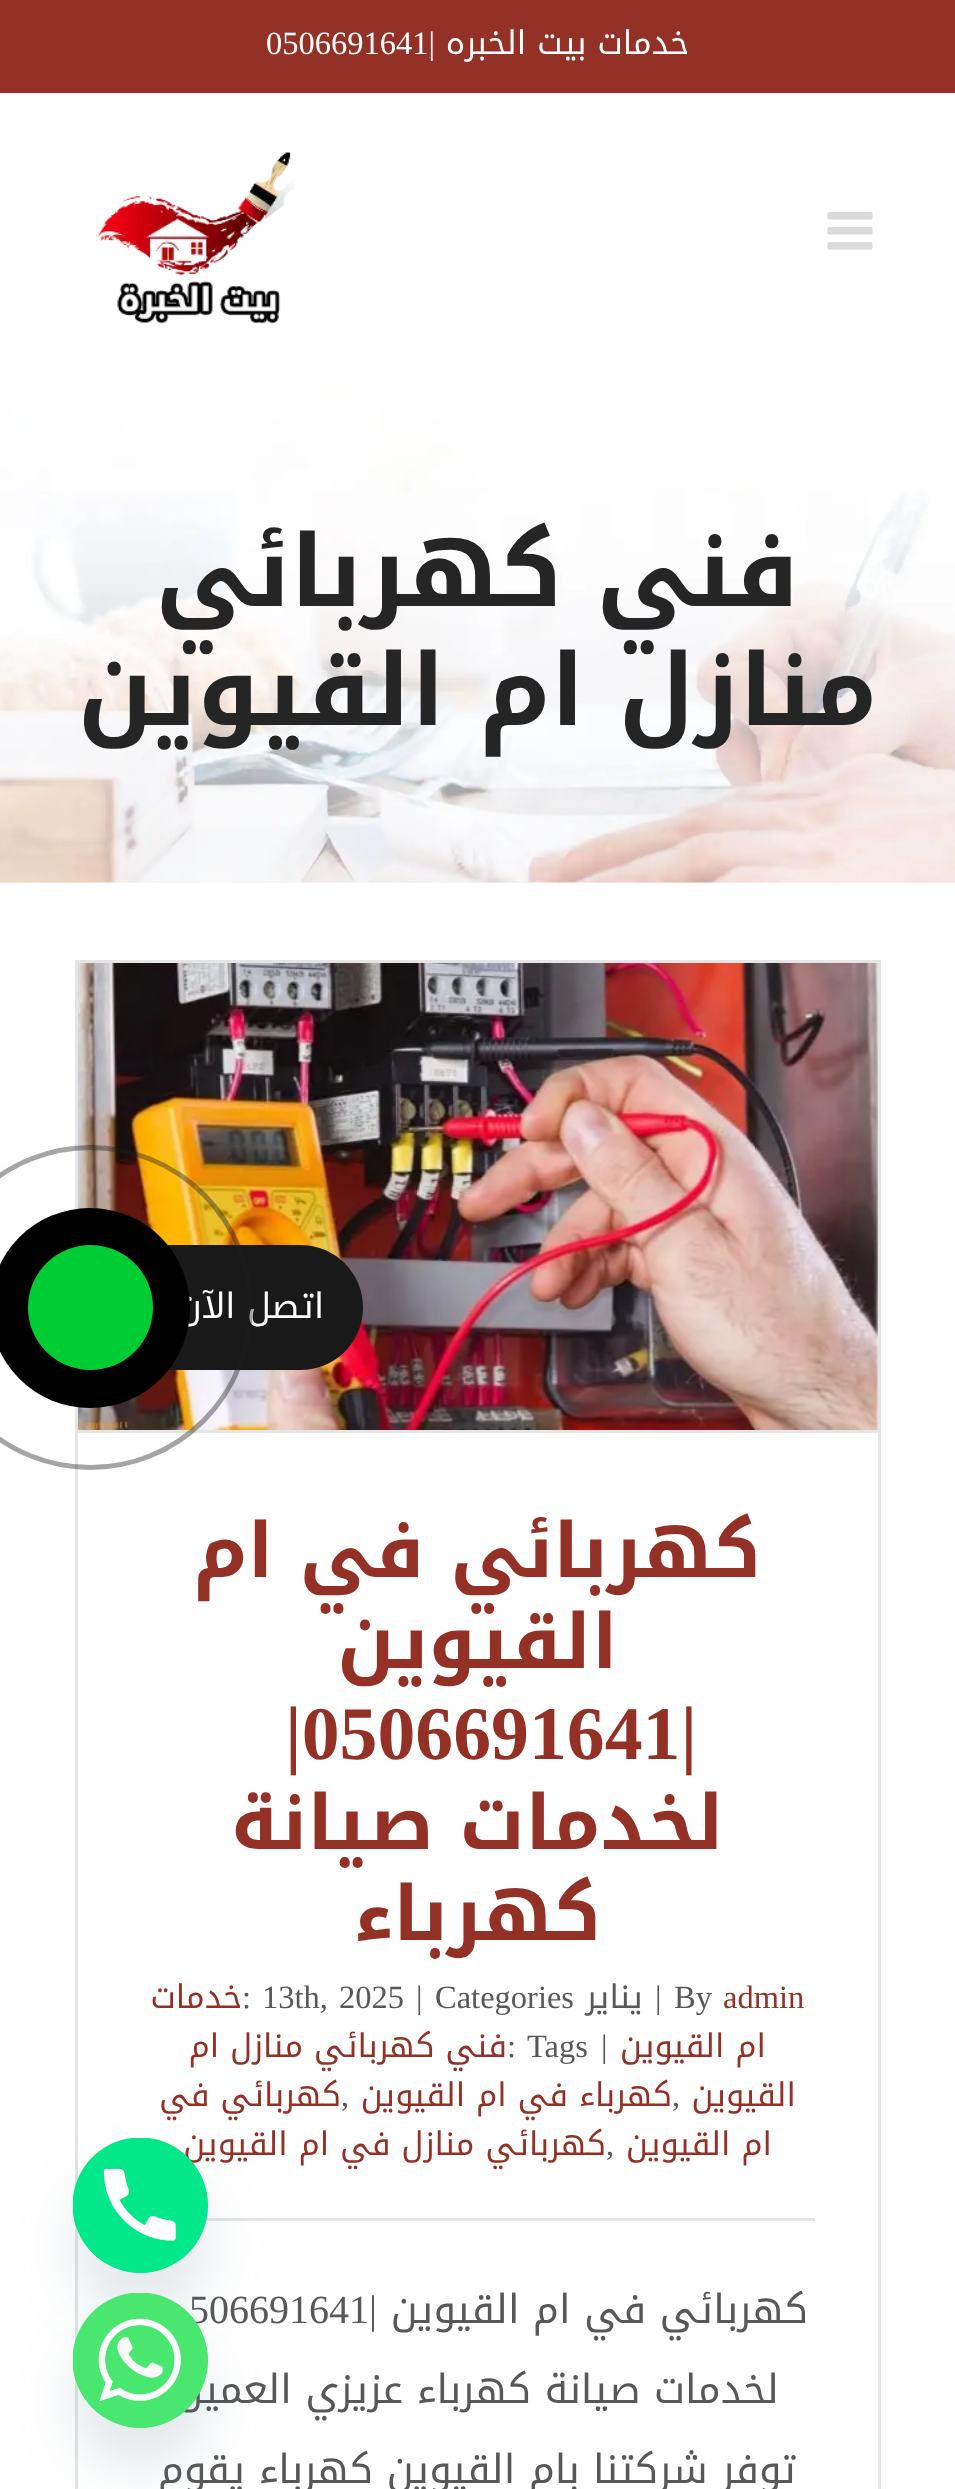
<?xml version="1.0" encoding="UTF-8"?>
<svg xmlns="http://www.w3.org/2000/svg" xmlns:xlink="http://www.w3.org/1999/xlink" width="955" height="2489">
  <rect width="100%" height="100%" fill="#ffffff" />
  <rect width="955" height="93" fill="#943126" />
  <image x="827" y="212" width="46" height="38" xlink:href="image1.png" />
  <image x="96" y="152" width="199" height="172" xlink:href="image2.png" />
  <rect y="882" width="955" height="1" fill="#f6f6f6" />
  <image x="0" y="383" width="955" height="500" xlink:href="image3.png" />
  <rect x="75" y="960" width="805" height="3" fill="#e5e5e5" />
  <rect x="878" y="960" width="3" height="1529" fill="#e5e5e5" />
  <rect x="75" y="960" width="3" height="1529" fill="#e5e5e5" />
  <rect x="78" y="1430" width="800" height="3" fill="#e5e5e5" />
  <image x="78" y="963" width="800" height="467" xlink:href="image4.png" />
  <rect x="206" y="2218" width="609" height="3" fill="#e5e5e5" />
  <rect x="28" y="1245" width="335" height="125" rx="62.5" fill="#1a1919" />
  <rect x="73" y="2178" width="135" height="135" rx="67.5" fill="#49687e" fill-opacity="0.16" filter="blur(30px)" />
  <text x="689" y="54" style="font-family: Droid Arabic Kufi; font-size: 32.5px; direction: rtl; fill: #ffffff">خدمات بيت الخبره</text>
  <text x="435" y="54" style="font-family: Liberation Serif; font-size: 32.5px; direction: rtl; fill: #ffffff">|</text>
  <text x="266" y="54" style="font-family: Liberation Serif; font-size: 32.5px; fill: #ffffff">0506691641</text>
  <text x="799" y="606" style="font-family: Droid Arabic Kufi; font-size: 99.25px; font-weight: bold; direction: rtl; fill: #252525">فني كهربائي</text>
  <text x="877" y="725" style="font-family: Droid Arabic Kufi; font-size: 99.25px; font-weight: bold; direction: rtl; fill: #252525">منازل ام القيوين</text>
  <text x="761" y="1577" style="font-family: Droid Arabic Kufi; font-size: 75.75px; font-weight: bold; direction: rtl; fill: #943126">كهربائي في ام</text>
  <text x="618" y="1668" style="font-family: Droid Arabic Kufi; font-size: 75.75px; font-weight: bold; direction: rtl; fill: #943126">القيوين</text>
  <text x="285" y="1759" style="font-family: Liberation Serif; font-size: 75.75px; font-weight: bold; fill: #943126">|0506691641|</text>
  <text x="724" y="1849" style="font-family: Droid Arabic Kufi; font-size: 75.75px; font-weight: bold; direction: rtl; fill: #943126">لخدمات صيانة</text>
  <text x="601" y="1940" style="font-family: Droid Arabic Kufi; font-size: 75.75px; font-weight: bold; direction: rtl; fill: #943126">كهرباء</text>
  <text x="723" y="2008" style="font-family: Liberation Serif; font-size: 32.5px; fill: #943126">admin</text>
  <text x="674" y="2008" style="font-family: Liberation Serif; font-size: 32.5px; fill: #585858">By</text>
  <text x="655" y="2008" style="font-family: Liberation Serif; font-size: 32.5px; fill: #585858">|</text>
  <text x="643" y="2008" style="font-family: Droid Arabic Kufi; font-size: 32.5px; direction: rtl; fill: #585858">يناير</text>
  <text x="435" y="2008" style="font-family: Liberation Serif; font-size: 32.5px; fill: #585858">Categories</text>
  <text x="416" y="2008" style="font-family: Liberation Serif; font-size: 32.5px; fill: #585858">|</text>
  <text x="262" y="2008" word-spacing="3" style="font-family: Liberation Serif; font-size: 32.5px; fill: #585858">13th, 2025</text>
  <text x="242" y="2008" style="font-family: Liberation Serif; font-size: 32.5px; fill: #585858">:</text>
  <text x="242" y="2008" style="font-family: Droid Arabic Kufi; font-size: 32.5px; direction: rtl; fill: #943126">خدمات</text>
  <text x="766" y="2057" style="font-family: Droid Arabic Kufi; font-size: 32.5px; direction: rtl; fill: #943126">ام القيوين</text>
  <text x="601" y="2057" style="font-family: Liberation Serif; font-size: 32.5px; fill: #585858">|</text>
  <text x="527" y="2057" style="font-family: Liberation Serif; font-size: 32.5px; fill: #585858">Tags</text>
  <text x="507" y="2057" style="font-family: Liberation Serif; font-size: 32.5px; fill: #585858">:</text>
  <text x="507" y="2057" style="font-family: Droid Arabic Kufi; font-size: 32.5px; direction: rtl; fill: #943126">فني كهربائي منازل ام</text>
  <text x="796" y="2106" style="font-family: Droid Arabic Kufi; font-size: 32.5px; direction: rtl; fill: #943126">القيوين</text>
  <text x="672" y="2106" style="font-family: Liberation Serif; font-size: 32.5px; fill: #585858">,</text>
  <text x="672" y="2106" style="font-family: Droid Arabic Kufi; font-size: 32.5px; direction: rtl; fill: #943126">كهرباء في ام القيوين</text>
  <text x="341" y="2106" style="font-family: Liberation Serif; font-size: 32.5px; fill: #585858">,</text>
  <text x="341" y="2106" style="font-family: Droid Arabic Kufi; font-size: 32.5px; direction: rtl; fill: #943126">كهربائي في</text>
  <text x="772" y="2155" style="font-family: Droid Arabic Kufi; font-size: 32.5px; direction: rtl; fill: #943126">ام القيوين</text>
  <text x="606" y="2155" style="font-family: Liberation Serif; font-size: 32.5px; fill: #585858">,</text>
  <text x="606" y="2155" style="font-family: Droid Arabic Kufi; font-size: 32.5px; direction: rtl; fill: #943126">كهربائي منازل في ام القيوين</text>
  <text x="808" y="2323" style="font-family: Droid Arabic Kufi; font-size: 40px; direction: rtl; fill: #585858">كهربائي في ام القيوين</text>
  <text x="377" y="2323" style="font-family: Liberation Serif; font-size: 40px; direction: rtl; fill: #585858">|</text>
  <text x="189" y="2323" style="font-family: Liberation Serif; font-size: 40px; fill: #585858">506691641</text>
  <text x="779" y="2403" style="font-family: Droid Arabic Kufi; font-size: 40px; direction: rtl; fill: #585858">لخدمات صيانة كهرباء عزيزي العميل</text>
  <text x="796" y="2483" style="font-family: Droid Arabic Kufi; font-size: 40px; direction: rtl; fill: #585858">توفر شركتنا بام القيوين كهرباء يقوم</text>
  <text x="324" y="1318" style="font-family: Droid Arabic Kufi; font-size: 35px; direction: rtl; fill: #ffffff">اتصل الآن</text>
  <circle cx="90.5" cy="1307.5" r="160" fill="none" stroke="#1e1e1e" stroke-opacity="0.4" stroke-width="5" />
  <circle cx="90" cy="1308" r="100" fill="#000000" />
  <circle cx="90.5" cy="1307.5" r="62.5" fill="#00cc33" />
  <circle cx="140.5" cy="2205.5" r="67.5" fill="#03e78b" />
  <image x="73" y="2138" width="135" height="135" xlink:href="image5.png" />
  <rect x="73" y="2333" width="135" height="135" rx="67.5" fill="#49687e" fill-opacity="0.16" filter="blur(30px)" />
  <circle cx="140.5" cy="2360.5" r="67.5" fill="#49e670" />
  <image x="73" y="2293" width="135" height="135" xlink:href="image6.png" />
</svg>
